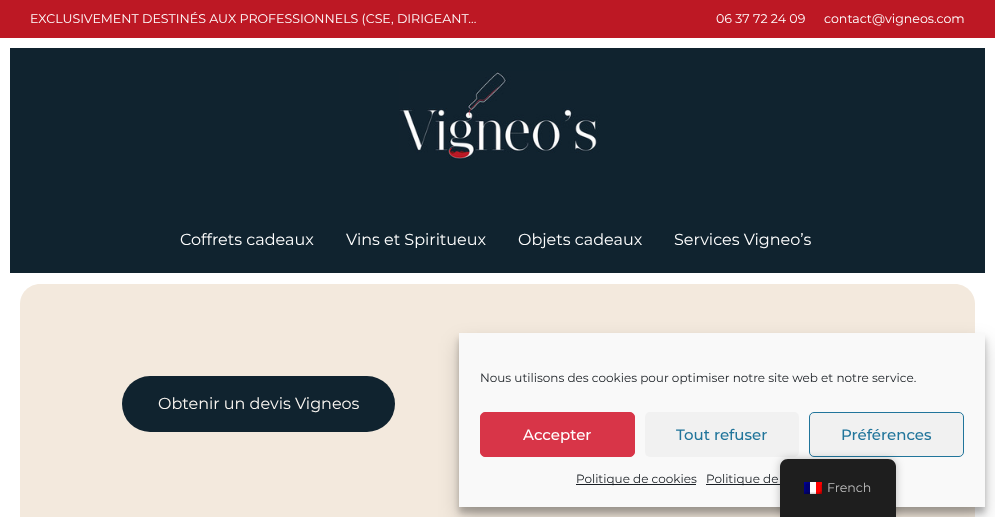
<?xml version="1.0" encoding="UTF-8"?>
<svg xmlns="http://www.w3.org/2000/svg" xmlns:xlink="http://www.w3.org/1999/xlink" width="995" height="517">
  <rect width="100%" height="100%" fill="#ffffff" />
  <rect width="995" height="38" fill="#bd1824" />
  <rect x="10" y="48" width="975" height="225" fill="#10232f" />
  <image x="399" y="71" width="201" height="89" xlink:href="image1.png" />
  <path d="M 40 284 h 458 v 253 h -458 c -11 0 -20 -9 -20 -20 v -213 c 0 -11 9 -20 20 -20 z" fill="#f3e9dd" />
  <rect x="122" y="376" width="273" height="56" rx="28" fill="#10232f" />
  <path d="M 498 284 h 457 c 11 0 20 9 20 20 v 213 c 0 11 -9 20 -20 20 h -457 z" fill="#f3e9dd" />
  <rect x="459" y="339" width="526" height="174" fill="#000000" fill-opacity="0.23" filter="blur(3px)" />
  <rect x="459" y="343" width="526" height="174" fill="#000000" fill-opacity="0.19" filter="blur(10px)" />
  <rect x="459" y="333" width="526" height="174" fill="#f9f9f9" />
  <rect x="645" y="412" width="154" height="45" rx="5" fill="#f1f1f1" />
  <rect x="809.5" y="412.5" width="154" height="44" rx="4.5" fill="#f1f1f1" stroke="#21759b" />
  <rect x="706" y="484" width="74" height="1" fill="#191e23" />
  <rect x="780" y="459" width="116" height="58" rx="8" fill="#000000" fill-opacity="0.25" filter="blur(4px)" />
  <path d="M 788 459 h 100 c 4.5 0 8 3.5 8 8 v 50 h -116 v -50 c 0 -4.5 3.5 -8 8 -8 z" fill="#1e1e1e" />
  <image x="804" y="482" width="18" height="12" xlink:href="image2.png" />
  <rect x="480.5" y="412.5" width="154" height="44" rx="4.5" fill="#d83548" stroke="#d83548" />
  <rect x="576" y="484" width="120" height="1" fill="#191e23" />
  <text x="30" y="23" style="font-family: Montserrat; font-size: 12.6px; fill: #ffffff">EXCLUSIVEMENT DESTINÉS AUX PROFESSIONNELS (CSE, DIRIGEANT…</text>
  <text x="716" y="23" style="font-family: Montserrat; font-size: 12.6px; fill: #ffffff">06 37 72 24 09</text>
  <text x="824" y="23" style="font-family: Montserrat; font-size: 12.6px; fill: #ffffff">contact@vigneos.com</text>
  <text x="180" y="245" style="font-family: Montserrat; font-size: 16px; fill: #ffffff">Coffrets cadeaux</text>
  <text x="346" y="245" style="font-family: Montserrat; font-size: 16px; fill: #ffffff">Vins et Spiritueux</text>
  <text x="518" y="245" style="font-family: Montserrat; font-size: 16px; fill: #ffffff">Objets cadeaux</text>
  <text x="674" y="245" style="font-family: Montserrat; font-size: 16px; fill: #ffffff">Services Vigneo’s</text>
  <text x="158" y="409" style="font-family: Montserrat; font-size: 16px; fill: #fcf8f3">Obtenir un devis Vigneos</text>
  <text x="827" y="492" style="font-family: Montserrat; font-size: 12.6px; fill: #bdbdbd">French</text>
  <text x="480" y="382" style="font-family: Montserrat; font-size: 12px; fill: #191e23">Nous utilisons des cookies pour optimiser notre site web et notre service.</text>
  <text x="523" y="440" style="font-family: Montserrat; font-size: 15px; font-weight: 500; fill: #ffffff">Accepter</text>
  <text x="676" y="440" style="font-family: Montserrat; font-size: 15px; font-weight: 500; fill: #21759b">Tout refuser</text>
  <text x="841" y="440" style="font-family: Montserrat; font-size: 15px; font-weight: 500; fill: #21759b">Préférences</text>
  <text x="576" y="483" style="font-family: Montserrat; font-size: 12px; fill: #191e23">Politique de cookies</text>
  <text x="706" y="483" style="font-family: Montserrat; font-size: 12px; fill: #191e23">Politique de</text>
</svg>
